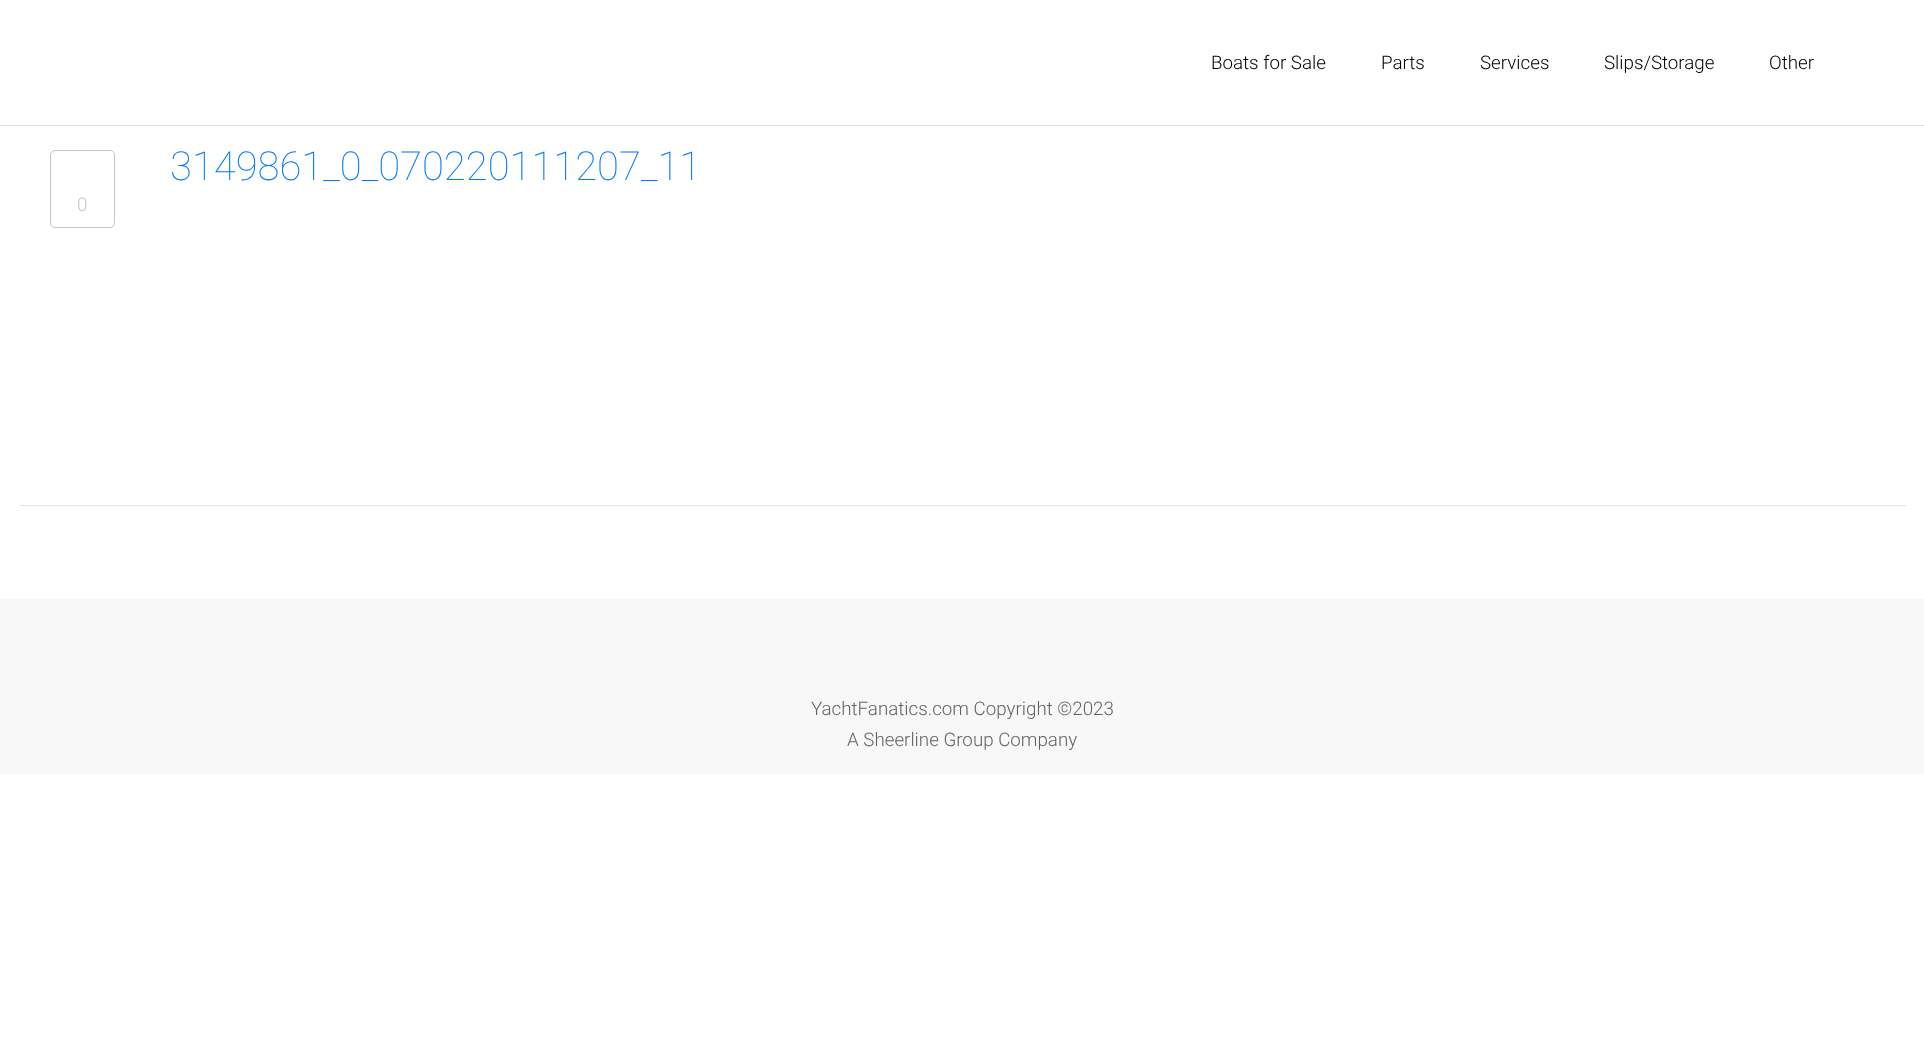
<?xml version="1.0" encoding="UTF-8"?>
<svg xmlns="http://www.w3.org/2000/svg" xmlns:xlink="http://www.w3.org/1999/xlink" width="1924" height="1040">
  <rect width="100%" height="100%" fill="#ffffff" />
  <rect y="125" width="1924" height="1" fill="#dddddd" />
  <rect x="19" y="505" width="1887" height="1" fill="#e1e4e6" />
  <rect x="50.5" y="150.5" width="64" height="77" rx="4.5" fill="none" stroke="#c5c5c5" />
  <rect y="599" width="1924" height="175" fill="#f8f8f8" />
  <text x="1211" y="69" style="font-family: Roboto; font-size: 18.75px; font-weight: 300; fill: #000000">Boats for Sale</text>
  <text x="1381" y="69" style="font-family: Roboto; font-size: 18.75px; font-weight: 300; fill: #000000">Parts</text>
  <text x="1480" y="69" style="font-family: Roboto; font-size: 18.75px; font-weight: 300; fill: #000000">Services</text>
  <text x="1604" y="69" style="font-family: Roboto; font-size: 18.75px; font-weight: 300; fill: #000000">Slips/Storage</text>
  <text x="1769" y="69" style="font-family: Roboto; font-size: 18.75px; font-weight: 300; fill: #000000">Other</text>
  <text x="170" y="180" style="font-family: Roboto; font-size: 40px; font-weight: 100; fill: #0079ff">3149861_0_070220111207_11</text>
  <text x="77" y="211" style="font-family: Roboto; font-size: 18.75px; font-weight: 300; fill: #c5c5c5">0</text>
  <text x="811" y="715" style="font-family: Roboto; font-size: 18.75px; font-weight: 300; fill: #626262">YachtFanatics.com Copyright ©2023</text>
  <text x="847" y="746" style="font-family: Roboto; font-size: 18.75px; font-weight: 300; fill: #626262">A Sheerline Group Company</text>
</svg>
